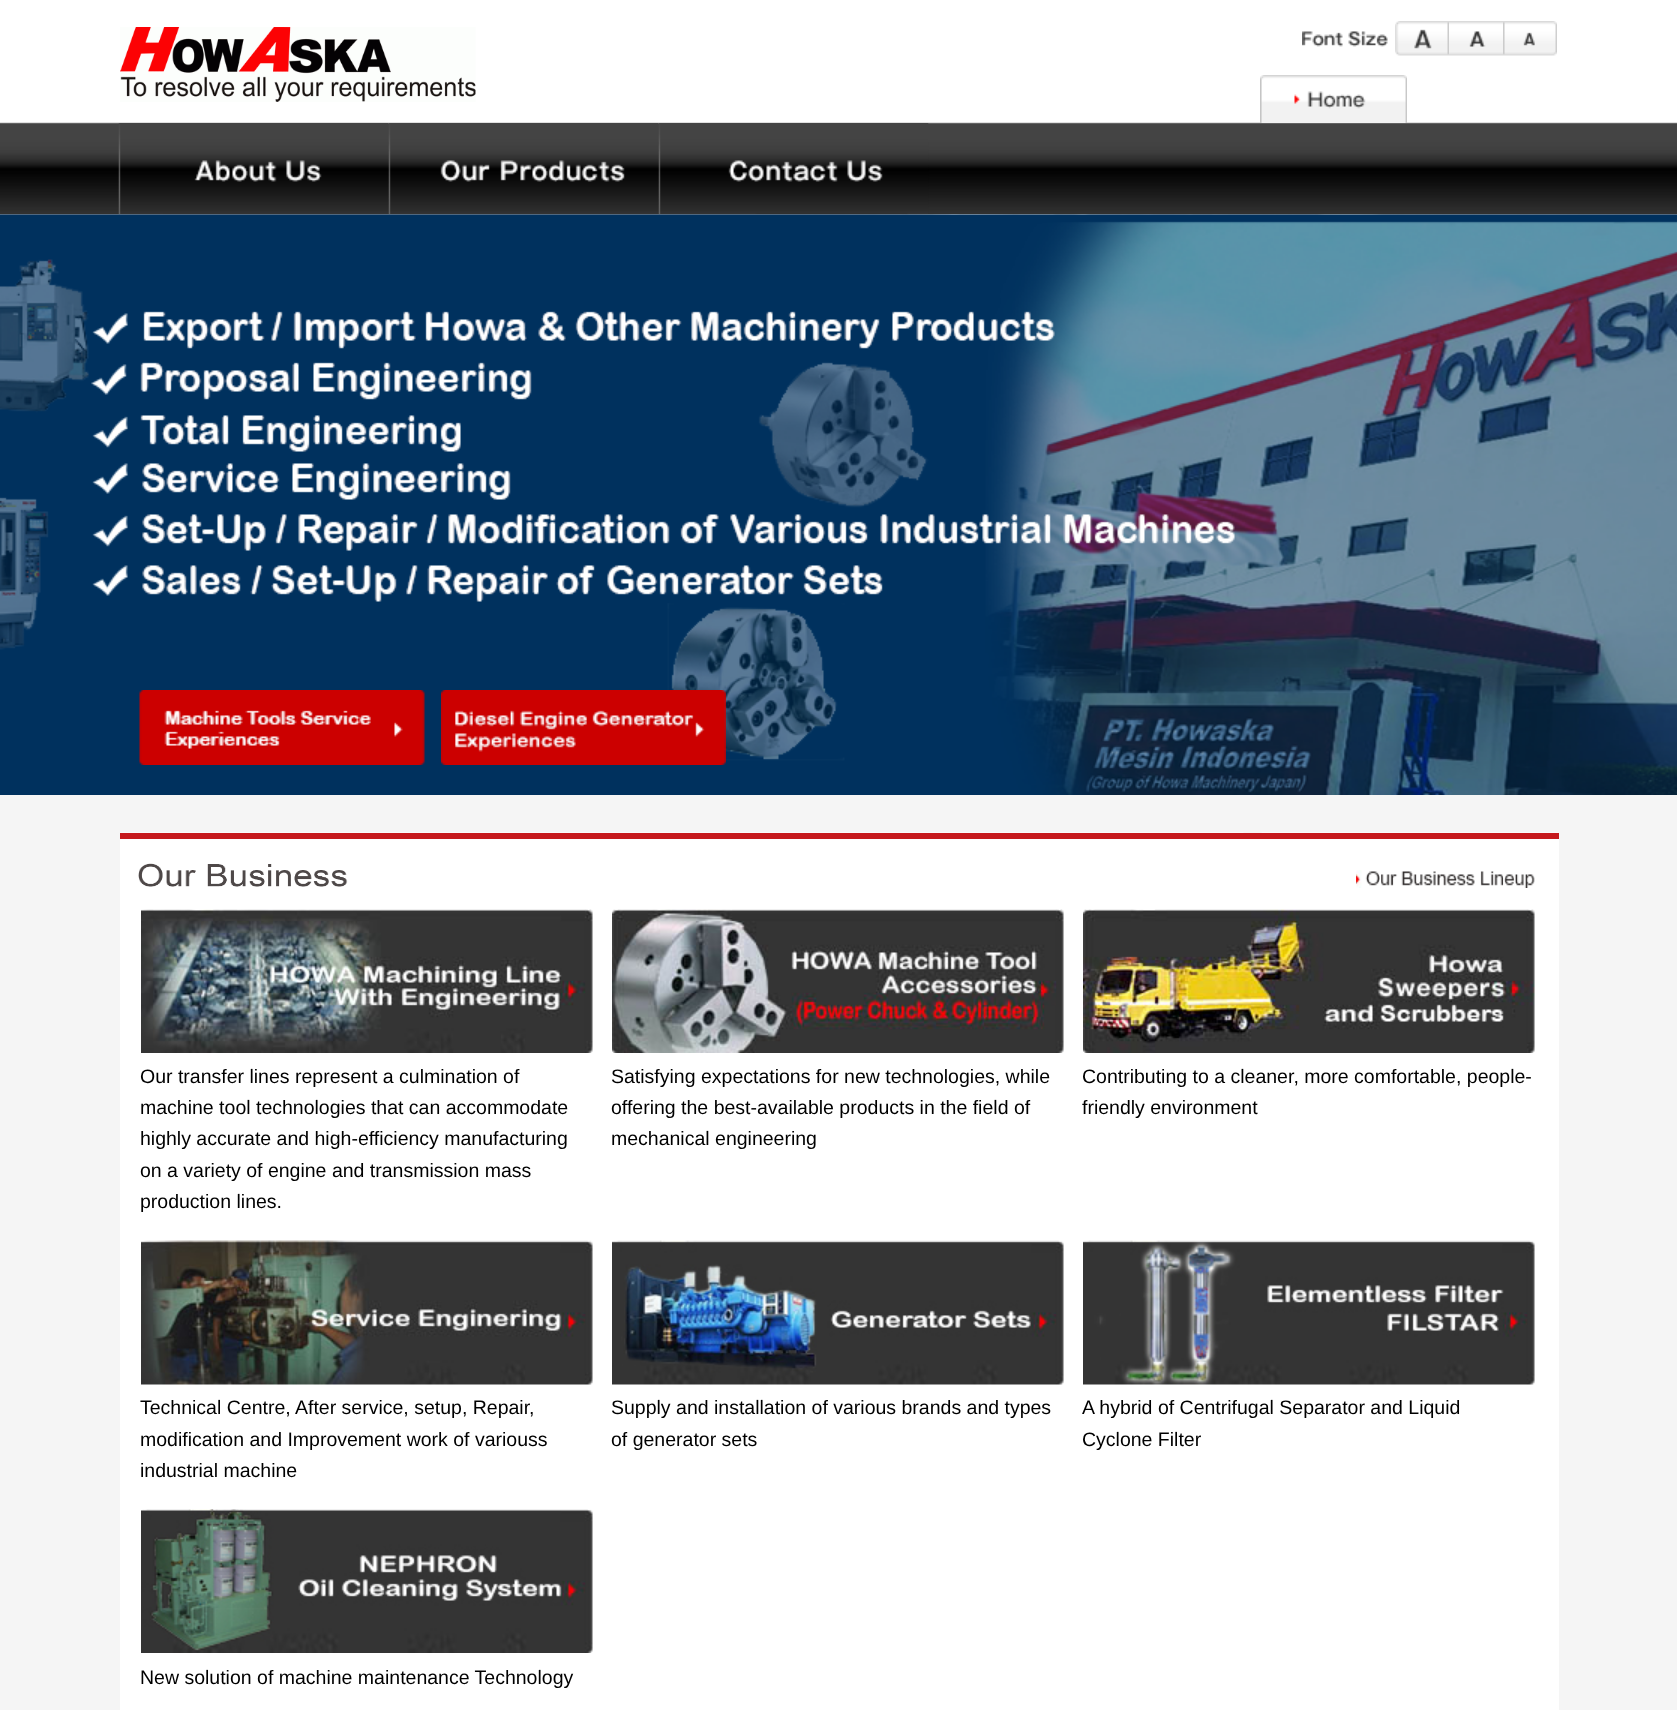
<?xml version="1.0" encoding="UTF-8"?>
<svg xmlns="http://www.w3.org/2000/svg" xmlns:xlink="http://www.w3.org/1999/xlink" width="1677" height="1710">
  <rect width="100%" height="100%" fill="#f5f5f5" />
  <image x="0" y="0" width="1677" height="215" xlink:href="image1.png" />
  <image x="120" y="27" width="356" height="75" xlink:href="image2.png" />
  <image x="1302" y="31" width="86" height="16" xlink:href="image3.png" />
  <image x="1395" y="21" width="54" height="35" xlink:href="image4.png" />
  <image x="1449" y="21" width="54" height="35" xlink:href="image5.png" />
  <image x="1503" y="21" width="54" height="35" xlink:href="image6.png" />
  <image x="1260" y="75" width="147" height="48" xlink:href="image7.png" />
  <image x="118" y="123" width="271" height="92" xlink:href="image8.png" />
  <image x="388" y="123" width="271" height="92" xlink:href="image9.png" />
  <image x="658" y="123" width="271" height="92" xlink:href="image10.png" />
  <image x="0" y="214" width="1677" height="1" xlink:href="image11.png" />
  <image x="0" y="214" width="1677" height="1" xlink:href="image12.png" />
  <image x="0" y="214" width="1677" height="1" xlink:href="image13.png" />
  <image x="0" y="214" width="1677" height="1" xlink:href="image14.png" />
  <image x="0" y="214" width="1677" height="1" xlink:href="image15.png" />
  <image x="0" y="214" width="1677" height="581" xlink:href="image16.png" />
  <image x="139" y="690" width="286" height="75" xlink:href="image17.png" />
  <image x="441" y="690" width="285" height="75" xlink:href="image18.png" />
  <image x="120" y="832" width="1439" height="1" xlink:href="image19.png" />
  <rect x="120" y="839" width="1439" height="871" fill="#ffffff" />
  <rect x="120" y="833" width="1439" height="6" fill="#c6191d" />
  <image x="138" y="863" width="210" height="24" xlink:href="image20.png" />
  <image x="1356" y="870" width="179" height="18" xlink:href="image21.png" />
  <image x="141" y="909" width="452" height="144" xlink:href="image22.png" />
  <image x="612" y="909" width="452" height="144" xlink:href="image23.png" />
  <image x="1083" y="909" width="452" height="144" xlink:href="image24.png" />
  <image x="141" y="1240" width="452" height="145" xlink:href="image25.png" />
  <image x="612" y="1240" width="452" height="145" xlink:href="image26.png" />
  <image x="1083" y="1240" width="452" height="145" xlink:href="image27.png" />
  <image x="141" y="1509" width="452" height="144" xlink:href="image28.png" />
  <text x="140" y="1083" style="font-family: Liberation Sans; font-size: 19.5px; fill: #000000">Our transfer lines represent a culmination of</text>
  <text x="140" y="1114" style="font-family: Liberation Sans; font-size: 19.5px; fill: #000000">machine tool technologies that can accommodate</text>
  <text x="140" y="1145" style="font-family: Liberation Sans; font-size: 19.5px; fill: #000000">highly accurate and high-efficiency manufacturing</text>
  <text x="140" y="1177" style="font-family: Liberation Sans; font-size: 19.5px; fill: #000000">on a variety of engine and transmission mass</text>
  <text x="140" y="1208" style="font-family: Liberation Sans; font-size: 19.5px; fill: #000000">production lines.</text>
  <text x="611" y="1083" style="font-family: Liberation Sans; font-size: 19.5px; fill: #000000">Satisfying expectations for new technologies, while</text>
  <text x="611" y="1114" style="font-family: Liberation Sans; font-size: 19.5px; fill: #000000">offering the best-available products in the field of</text>
  <text x="611" y="1145" style="font-family: Liberation Sans; font-size: 19.5px; fill: #000000">mechanical engineering</text>
  <text x="1082" y="1083" style="font-family: Liberation Sans; font-size: 19.5px; fill: #000000">Contributing to a cleaner, more comfortable, people-</text>
  <text x="1082" y="1114" style="font-family: Liberation Sans; font-size: 19.5px; fill: #000000">friendly environment</text>
  <text x="140" y="1414" style="font-family: Liberation Sans; font-size: 19.5px; fill: #000000">Technical Centre, After service, setup, Repair,</text>
  <text x="140" y="1446" style="font-family: Liberation Sans; font-size: 19.5px; fill: #000000">modification and Improvement work of variouss</text>
  <text x="140" y="1477" style="font-family: Liberation Sans; font-size: 19.5px; fill: #000000">industrial machine</text>
  <text x="611" y="1414" style="font-family: Liberation Sans; font-size: 19.5px; fill: #000000">Supply and installation of various brands and types</text>
  <text x="611" y="1446" style="font-family: Liberation Sans; font-size: 19.5px; fill: #000000">of generator sets</text>
  <text x="1082" y="1414" style="font-family: Liberation Sans; font-size: 19.5px; fill: #000000">A hybrid of Centrifugal Separator and Liquid</text>
  <text x="1082" y="1446" style="font-family: Liberation Sans; font-size: 19.5px; fill: #000000">Cyclone Filter</text>
  <text x="140" y="1684" style="font-family: Liberation Sans; font-size: 19.5px; fill: #000000">New solution of machine maintenance Technology</text>
</svg>
